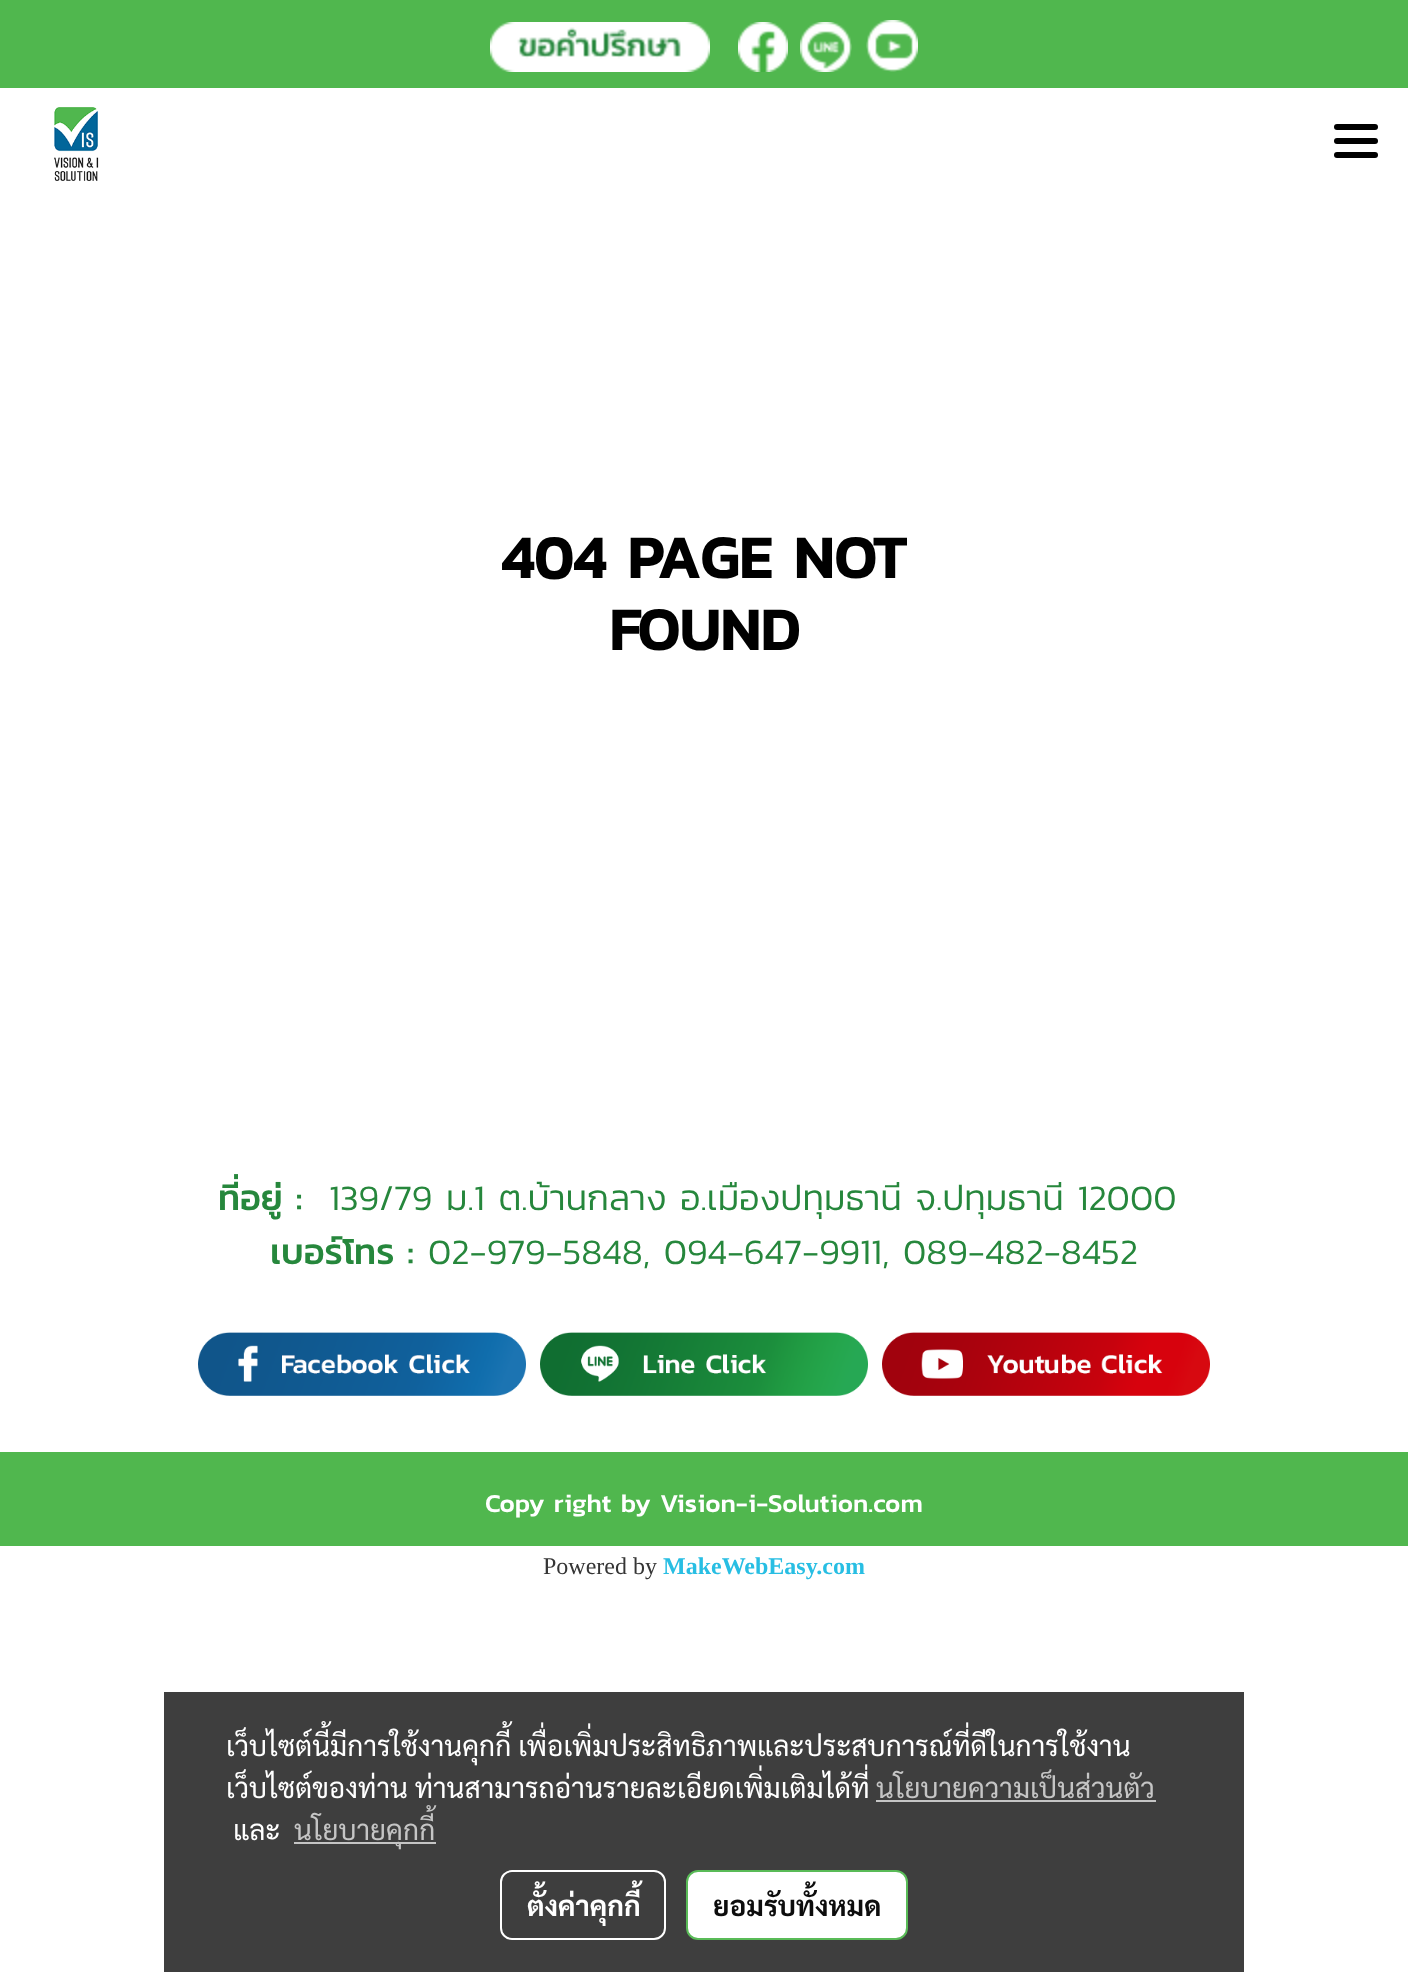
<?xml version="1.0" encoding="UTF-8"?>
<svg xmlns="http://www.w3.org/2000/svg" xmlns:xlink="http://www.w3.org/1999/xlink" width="1408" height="1972">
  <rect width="100%" height="100%" fill="#ffffff" />
  <rect width="1408" height="88" fill="#50b74e" />
  <image x="490" y="22" width="220" height="50" xlink:href="image1.png" />
  <image x="738" y="22" width="50" height="50" xlink:href="image2.png" />
  <image x="800" y="22" width="52" height="50" xlink:href="image3.png" />
  <image x="866" y="20" width="52" height="52" xlink:href="image4.png" />
  <image x="54" y="107" width="45" height="74" xlink:href="image5.png" />
  <rect x="1334" y="138" width="44" height="6" rx="3" fill="#000000" />
  <rect x="1334" y="124" width="44" height="6" rx="3" fill="#000000" />
  <rect x="1334" y="152" width="44" height="6" rx="3" fill="#000000" />
  <image x="198" y="1332" width="328" height="64" xlink:href="image6.png" />
  <image x="540" y="1332" width="328" height="64" xlink:href="image7.png" />
  <image x="882" y="1332" width="328" height="64" xlink:href="image8.png" />
  <rect y="1452" width="1408" height="94" fill="#50b74e" />
  <rect x="164" y="1692" width="1080" height="280" fill="#3e3e3e" />
  <rect x="876" y="1800" width="280" height="2" fill="#c5c5c5" />
  <rect x="294" y="1842" width="142" height="2" fill="#c5c5c5" />
  <rect x="501" y="1871" width="164" height="68" rx="11" fill="none" stroke="#ffffff" stroke-width="2" />
  <rect x="687" y="1871" width="220" height="68" rx="11" fill="#ffffff" stroke="#59bb57" stroke-width="2" />
  <text x="501" y="578" style="font-family: Kanit; font-size: 60px; font-weight: bold; fill: #000000">404 PAGE NOT</text>
  <text x="609" y="650" style="font-family: Kanit; font-size: 60px; font-weight: bold; fill: #000000">FOUND</text>
  <text x="218" y="1210" style="font-family: Kanit; font-size: 36px; font-weight: 500; fill: #26873c">ที่อยู่ :</text>
  <text x="329" y="1210" style="font-family: Kanit; font-size: 36px; font-weight: 300; fill: #26873c">139/79 ม.1 ต.บ้านกลาง อ.เมืองปทุมธานี จ.ปทุมธานี 12000</text>
  <text x="270" y="1264" style="font-family: Kanit; font-size: 36px; font-weight: 500; fill: #26873c">เบอร์โทร :</text>
  <text x="428" y="1264" style="font-family: Kanit; font-size: 36px; font-weight: 300; fill: #26873c">02-979-5848, 094-647-9911, 089-482-8452</text>
  <text x="485" y="1512" style="font-family: Kanit; font-size: 26px; font-weight: 500; fill: #ffffff">Copy right by Vision-i-Solution.com</text>
  <text x="543" y="1574" style="font-family: Liberation Serif; font-size: 24px; fill: #353535">Powered by</text>
  <text x="663" y="1574" style="font-family: Liberation Serif; font-size: 24px; font-weight: bold; fill: #28bee3">MakeWebEasy.com</text>
  <text x="226" y="1756" style="font-family: Sarabun; font-size: 28px; fill: #ffffff">เว็บไซต์นี้มีการใช้งานคุกกี้ เพื่อเพิ่มประสิทธิภาพและประสบการณ์ที่ดีในการใช้งาน</text>
  <text x="226" y="1798" style="font-family: Sarabun; font-size: 28px; fill: #ffffff">เว็บไซต์ของท่าน ท่านสามารถอ่านรายละเอียดเพิ่มเติมได้ที่</text>
  <text x="876" y="1798" style="font-family: Sarabun; font-size: 28px; fill: #c5c5c5">นโยบายความเป็นส่วนตัว</text>
  <text x="233" y="1840" style="font-family: Sarabun; font-size: 28px; fill: #ffffff">และ</text>
  <text x="294" y="1840" style="font-family: Sarabun; font-size: 28px; fill: #c5c5c5">นโยบายคุกกี้</text>
  <text x="527" y="1916" style="font-family: Sarabun; font-size: 28px; font-weight: bold; fill: #ffffff">ตั้งค่าคุกกี้</text>
  <text x="713" y="1916" style="font-family: Sarabun; font-size: 28px; font-weight: bold; fill: #0d0d0d">ยอมรับทั้งหมด</text>
</svg>
